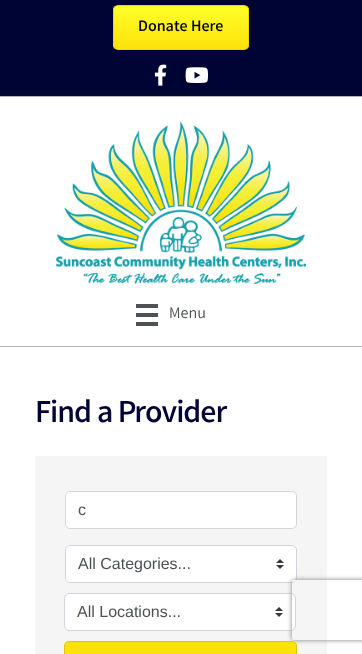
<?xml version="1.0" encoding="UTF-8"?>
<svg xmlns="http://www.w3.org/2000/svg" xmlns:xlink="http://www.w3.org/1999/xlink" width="362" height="654">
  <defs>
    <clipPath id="clip1"><rect x="113" y="5" width="136" height="45" rx="5" /></clipPath>
    <linearGradient id="g1" gradientUnits="userSpaceOnUse" x1="181" y1="6" x2="181" y2="49"><stop offset="0" stop-color="#ffff28" /><stop offset="1" stop-color="#fde10a" /></linearGradient>
    <clipPath id="clip2"><rect x="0" y="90" width="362" height="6" /></clipPath>
    <clipPath id="clip3"><path d="M 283 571 h 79 v 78 h -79 z m 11 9 h 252 c 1 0 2 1 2 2 v 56 c 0 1 -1 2 -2 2 h -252 c -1 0 -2 -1 -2 -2 v -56 c 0 -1 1 -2 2 -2 z" clip-rule="evenodd" /></clipPath>
  </defs>
  <rect width="100%" height="100%" fill="#ffffff" />
  <rect width="362" height="96" fill="#000435" />
  <g clip-path="url(#clip1)">
    <rect x="113" y="6" width="136" height="43" fill="url(#g1)" />
  </g>
  <rect x="113.5" y="5.5" width="135" height="44" rx="4.5" fill="none" stroke="#f1d500" />
  <image x="154" y="64" width="13" height="22" xlink:href="image1.png" />
  <image x="185" y="67" width="23" height="16" xlink:href="image2.png" />
  <g clip-path="url(#clip2)">
    <rect x="-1" y="95" width="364" height="253" fill="#001524" fill-opacity="0.43" filter="blur(3px)" />
  </g>
  <rect y="96" width="362" height="1" fill="#b0b6bb" />
  <rect y="346" width="362" height="1" fill="#b0b6bb" />
  <image x="56" y="122" width="250" height="162" xlink:href="image3.png" />
  <rect x="136" y="304" width="22" height="4" fill="#4c5256" />
  <rect x="136" y="313" width="22" height="4" fill="#4c5256" />
  <rect x="136" y="322" width="22" height="4" fill="#4c5256" />
  <rect y="347" width="362" height="7" fill="#ffffff" />
  <rect x="35" y="456" width="292" height="198" fill="#f5f5f5" />
  <rect x="65.5" y="491.5" width="231" height="37" rx="4.5" fill="#ffffff" stroke="#d6d6d6" />
  <rect x="65" y="545" width="232" height="38" rx="5" fill="#ffffff" />
  <image x="276" y="559" width="8" height="10" xlink:href="image4.png" />
  <rect x="65.5" y="545.5" width="231" height="37" rx="4.5" fill="none" stroke="#ced4da" />
  <rect x="64" y="593" width="232" height="38" rx="5" fill="#ffffff" />
  <image x="275" y="607" width="8" height="10" xlink:href="image4.png" />
  <rect x="64.5" y="593.5" width="231" height="37" rx="4.5" fill="none" stroke="#ced4da" />
  <g clip-path="url(#clip3)">
    <rect x="292" y="580" width="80" height="60" rx="2" fill="#808080" filter="blur(2.5px)" />
  </g>
  <rect x="64" y="641" width="233" height="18" rx="5" fill="#fde10a" />
  <rect x="64.5" y="641.5" width="232" height="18" rx="4.5" fill="none" stroke="#000000" stroke-opacity="0.12" />
  <text x="138" y="31" style="font-family: Varta; font-size: 16px; font-weight: bold; fill: #000000">Donate Here</text>
  <text x="169" y="318" style="font-family: Varta; font-size: 16px; fill: #4c5256">Menu</text>
  <text x="35" y="422" style="font-family: Varta; font-size: 32px; font-weight: bold; letter-spacing: -1px; fill: #000435">Find a Provider</text>
  <text x="78" y="515" style="font-family: Liberation Sans; font-size: 16px; fill: #4c5256">c</text>
  <text x="78" y="569" style="font-family: Liberation Sans; font-size: 16px; fill: #4c5256">All Categories...</text>
  <text x="77" y="617" style="font-family: Liberation Sans; font-size: 16px; fill: #4c5256">All Locations...</text>
</svg>
